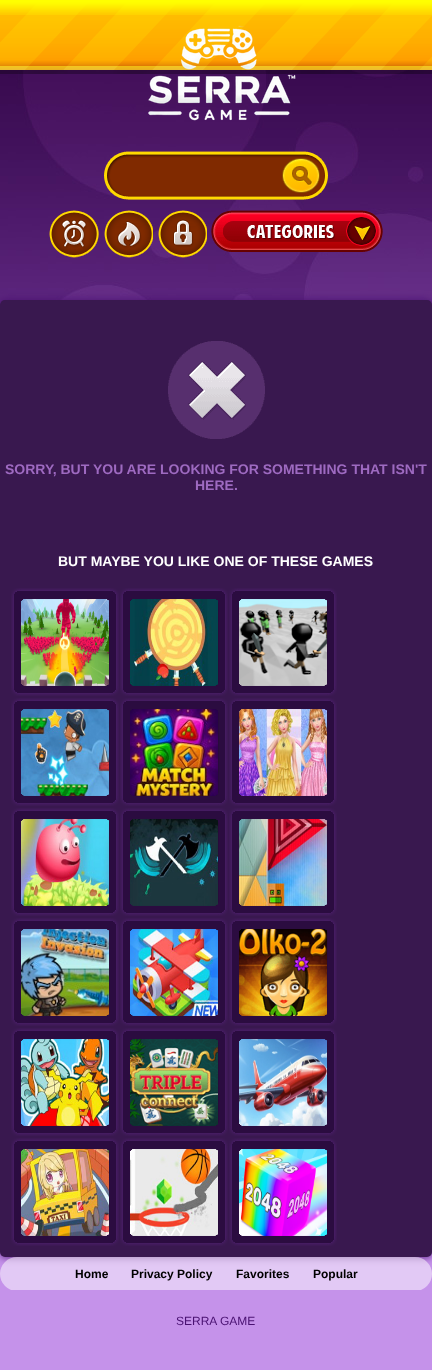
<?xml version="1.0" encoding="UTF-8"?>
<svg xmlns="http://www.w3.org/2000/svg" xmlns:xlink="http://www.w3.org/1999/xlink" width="432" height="1370">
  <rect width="100%" height="100%" fill="#c592ea" />
  <image x="0" y="70" width="432" height="235" xlink:href="image1.png" />
  <image x="0" y="0" width="432" height="74" xlink:href="image2.png" />
  <image x="148" y="25" width="148" height="96" xlink:href="image3.png" />
  <image x="104" y="151" width="224" height="49" xlink:href="image4.png" />
  <image x="49" y="210" width="50" height="48" xlink:href="image5.png" />
  <image x="104" y="210" width="49" height="48" xlink:href="image6.png" />
  <image x="158" y="210" width="49" height="48" xlink:href="image7.png" />
  <image x="211" y="210" width="172" height="42" xlink:href="image8.png" />
  <rect y="300" width="432" height="957" rx="5" fill="#4a1071" filter="blur(4px)" />
  <rect y="300" width="432" height="957" rx="5" fill="#39184f" />
  <image x="168" y="341" width="97" height="98" xlink:href="image9.png" />
  <image x="21" y="599" width="88" height="87" xlink:href="image11.png" />
  <image x="11" y="588" width="108" height="108" xlink:href="image10.png" />
  <image x="130" y="599" width="88" height="87" xlink:href="image13.png" />
  <image x="120" y="588" width="108" height="108" xlink:href="image12.png" />
  <image x="239" y="599" width="88" height="87" xlink:href="image15.png" />
  <image x="229" y="588" width="108" height="108" xlink:href="image14.png" />
  <image x="21" y="709" width="88" height="87" xlink:href="image17.png" />
  <image x="11" y="698" width="108" height="108" xlink:href="image16.png" />
  <image x="130" y="709" width="88" height="87" xlink:href="image19.png" />
  <image x="120" y="698" width="108" height="108" xlink:href="image18.png" />
  <image x="239" y="709" width="88" height="87" xlink:href="image21.png" />
  <image x="229" y="698" width="108" height="108" xlink:href="image20.png" />
  <image x="21" y="819" width="88" height="87" xlink:href="image23.png" />
  <image x="11" y="808" width="108" height="108" xlink:href="image22.png" />
  <image x="130" y="819" width="88" height="87" xlink:href="image25.png" />
  <image x="120" y="808" width="108" height="108" xlink:href="image24.png" />
  <image x="239" y="819" width="88" height="87" xlink:href="image27.png" />
  <image x="229" y="808" width="108" height="108" xlink:href="image26.png" />
  <image x="21" y="929" width="88" height="87" xlink:href="image29.png" />
  <image x="11" y="918" width="108" height="108" xlink:href="image28.png" />
  <image x="130" y="929" width="88" height="87" xlink:href="image31.png" />
  <image x="120" y="918" width="108" height="108" xlink:href="image30.png" />
  <image x="239" y="929" width="88" height="87" xlink:href="image33.png" />
  <image x="229" y="918" width="108" height="108" xlink:href="image32.png" />
  <image x="21" y="1039" width="88" height="87" xlink:href="image35.png" />
  <image x="11" y="1028" width="108" height="108" xlink:href="image34.png" />
  <image x="130" y="1039" width="88" height="87" xlink:href="image37.png" />
  <image x="120" y="1028" width="108" height="108" xlink:href="image36.png" />
  <image x="239" y="1039" width="88" height="87" xlink:href="image39.png" />
  <image x="229" y="1028" width="108" height="108" xlink:href="image38.png" />
  <image x="21" y="1149" width="88" height="87" xlink:href="image41.png" />
  <image x="11" y="1138" width="108" height="108" xlink:href="image40.png" />
  <image x="130" y="1149" width="88" height="87" xlink:href="image43.png" />
  <image x="120" y="1138" width="108" height="108" xlink:href="image42.png" />
  <image x="239" y="1149" width="88" height="87" xlink:href="image45.png" />
  <image x="229" y="1138" width="108" height="108" xlink:href="image44.png" />
  <image x="0" y="1257" width="432" height="33" xlink:href="image46.png" />
  <text x="5" y="474" style="font-family: Liberation Sans; font-size: 14px; font-weight: bold; fill: #9e6ac1">SORRY, BUT YOU ARE LOOKING FOR SOMETHING THAT ISN'T</text>
  <text x="195" y="490" style="font-family: Liberation Sans; font-size: 14px; font-weight: bold; fill: #9e6ac1">HERE.</text>
  <text x="58" y="566" style="font-family: Liberation Sans; font-size: 14px; font-weight: bold; fill: #ffffff">BUT MAYBE YOU LIKE ONE OF THESE GAMES</text>
  <text x="75" y="1278" style="font-family: Liberation Sans; font-size: 12px; font-weight: bold; fill: #000000">Home</text>
  <text x="131" y="1278" style="font-family: Liberation Sans; font-size: 12px; font-weight: bold; fill: #000000">Privacy Policy</text>
  <text x="236" y="1278" style="font-family: Liberation Sans; font-size: 12px; font-weight: bold; fill: #000000">Favorites</text>
  <text x="313" y="1278" style="font-family: Liberation Sans; font-size: 12px; font-weight: bold; fill: #000000">Popular</text>
  <text x="176" y="1325" style="font-family: Liberation Sans; font-size: 12px; fill: #491171">SERRA GAME</text>
</svg>
